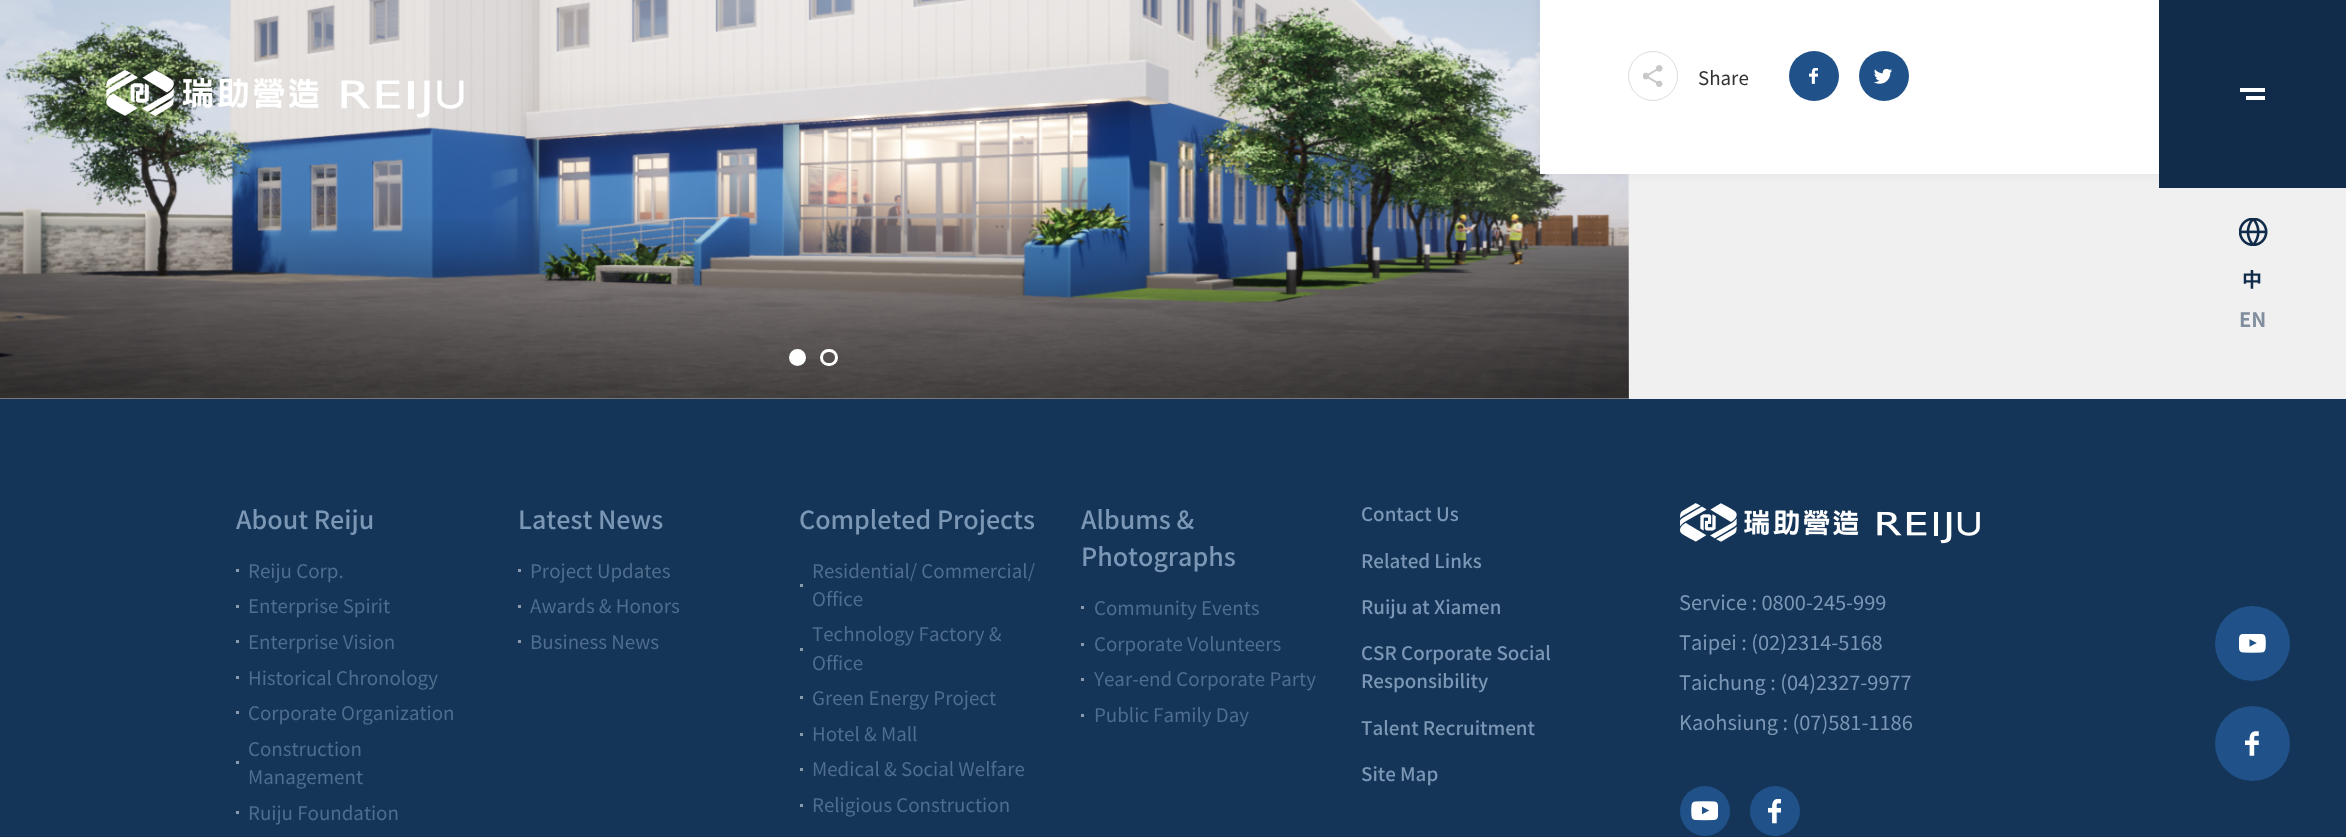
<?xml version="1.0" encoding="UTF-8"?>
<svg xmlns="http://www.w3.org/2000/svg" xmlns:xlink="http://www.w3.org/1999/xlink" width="2346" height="837">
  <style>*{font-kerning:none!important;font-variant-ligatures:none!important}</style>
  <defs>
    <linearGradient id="g1" gradientUnits="userSpaceOnUse" x1="814" y1="211" x2="814" y2="399"><stop offset="0" stop-color="#000000" stop-opacity="0" /><stop offset="1" stop-color="#000000" stop-opacity="0.5" /></linearGradient>
  </defs>
  <rect width="100%" height="100%" fill="#143558" />
  <rect y="174" width="2346" height="225" fill="#f0f0f0" />
  <image x="0" y="0" width="1629" height="398" xlink:href="image1.png" />
  <rect y="219" width="1629" height="180" fill="url(#g1)" />
  <circle cx="797.5" cy="357.5" r="7" fill="#ffffff" stroke="#ffffff" stroke-width="3" />
  <rect x="821.5" y="350.5" width="15" height="14" rx="7" fill="none" stroke="#ffffff" stroke-width="3" />
  <rect x="1540" y="-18" width="806" height="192" fill="#000000" fill-opacity="0.05" filter="blur(6px)" />
  <rect x="1540" width="619" height="174" fill="#ffffff" />
  <circle cx="1653" cy="76" r="24.5" fill="none" stroke="#dcdcdc" />
  <image x="1643" y="65" width="20" height="22" xlink:href="image2.png" />
  <circle cx="1814" cy="76" r="25" fill="#205289" />
  <image x="1809" y="68" width="9" height="16" xlink:href="image3.png" />
  <circle cx="1884" cy="76" r="25" fill="#205289" />
  <image x="1874" y="69" width="19" height="15" xlink:href="image4.png" />
  <image x="106" y="70" width="358" height="48" xlink:href="image5.png" />
  <rect x="2159" width="187" height="188" fill="#112c4a" />
  <rect x="2240" y="88" width="25" height="4" fill="#ffffff" />
  <rect x="2246" y="96" width="19" height="4" fill="#ffffff" />
  <image x="2239" y="218" width="29" height="28" xlink:href="image6.png" />
  <circle cx="2252.5" cy="643.5" r="37.5" fill="#205289" />
  <image x="2239" y="634" width="27" height="19" xlink:href="image7.png" />
  <circle cx="2252.5" cy="743.5" r="37.5" fill="#205289" />
  <image x="2245" y="731" width="14" height="25" xlink:href="image8.png" />
  <rect x="236" y="569" width="3" height="3" fill="#8a9aac" />
  <rect x="236" y="605" width="3" height="3" fill="#8a9aac" />
  <rect x="236" y="640" width="3" height="3" fill="#8a9aac" />
  <rect x="236" y="676" width="3" height="3" fill="#8a9aac" />
  <rect x="236" y="711" width="3" height="3" fill="#8a9aac" />
  <rect x="236" y="761" width="3" height="3" fill="#8a9aac" />
  <rect x="236" y="811" width="3" height="3" fill="#8a9aac" />
  <rect x="518" y="569" width="3" height="3" fill="#8a9aac" />
  <rect x="518" y="605" width="3" height="3" fill="#8a9aac" />
  <rect x="518" y="640" width="3" height="3" fill="#8a9aac" />
  <rect x="800" y="584" width="3" height="3" fill="#8a9aac" />
  <rect x="800" y="648" width="3" height="3" fill="#8a9aac" />
  <rect x="800" y="696" width="3" height="3" fill="#8a9aac" />
  <rect x="800" y="733" width="3" height="3" fill="#8a9aac" />
  <rect x="800" y="768" width="3" height="3" fill="#8a9aac" />
  <rect x="800" y="804" width="3" height="3" fill="#8a9aac" />
  <rect x="1081" y="606" width="3" height="3" fill="#8a9aac" />
  <rect x="1081" y="643" width="3" height="3" fill="#8a9aac" />
  <rect x="1081" y="678" width="3" height="3" fill="#8a9aac" />
  <rect x="1081" y="714" width="3" height="3" fill="#8a9aac" />
  <image x="1680" y="503" width="300" height="41" xlink:href="image9.png" />
  <circle cx="1705" cy="811" r="25" fill="#205289" />
  <image x="1691" y="801" width="27" height="20" xlink:href="image10.png" />
  <circle cx="1775" cy="811" r="25" fill="#205289" />
  <image x="1768" y="799" width="13" height="25" xlink:href="image11.png" />
  <text x="1698" y="85" style="font-family: Noto Sans TC; font-size: 18.75px; fill: #323232">Share</text>
  <text x="2242" y="287" style="font-family: Noto Sans TC; font-size: 20px; font-weight: bold; fill: #112c4a">中</text>
  <text x="2239" y="327" style="font-family: Noto Sans TC; font-size: 20px; font-weight: bold; fill: #818e9d">EN</text>
  <text x="236" y="529" style="font-family: Noto Sans TC; font-size: 25px; font-weight: 500; fill: #7b97b5">About Reiju</text>
  <text x="248" y="578" style="font-family: Noto Sans TC; font-size: 18.75px; fill: #4f6d8c">Reiju Corp.</text>
  <text x="248" y="613" style="font-family: Noto Sans TC; font-size: 18.75px; fill: #4f6d8c">Enterprise Spirit</text>
  <text x="248" y="649" style="font-family: Noto Sans TC; font-size: 18.75px; fill: #4f6d8c">Enterprise Vision</text>
  <text x="248" y="685" style="font-family: Noto Sans TC; font-size: 18.75px; fill: #4f6d8c">Historical Chronology</text>
  <text x="248" y="720" style="font-family: Noto Sans TC; font-size: 18.75px; fill: #4f6d8c">Corporate Organization</text>
  <text x="248" y="756" style="font-family: Noto Sans TC; font-size: 18.75px; fill: #4f6d8c">Construction</text>
  <text x="248" y="784" style="font-family: Noto Sans TC; font-size: 18.75px; fill: #4f6d8c">Management</text>
  <text x="248" y="820" style="font-family: Noto Sans TC; font-size: 18.75px; fill: #4f6d8c">Ruiju Foundation</text>
  <text x="518" y="529" style="font-family: Noto Sans TC; font-size: 25px; font-weight: 500; fill: #7b97b5">Latest News</text>
  <text x="530" y="578" style="font-family: Noto Sans TC; font-size: 18.75px; fill: #4f6d8c">Project Updates</text>
  <text x="530" y="613" style="font-family: Noto Sans TC; font-size: 18.75px; fill: #4f6d8c">Awards &amp; Honors</text>
  <text x="530" y="649" style="font-family: Noto Sans TC; font-size: 18.75px; fill: #4f6d8c">Business News</text>
  <text x="799" y="529" style="font-family: Noto Sans TC; font-size: 25px; font-weight: 500; fill: #7b97b5">Completed Projects</text>
  <text x="812" y="578" style="font-family: Noto Sans TC; font-size: 18.75px; fill: #4f6d8c">Residential/ Commercial/</text>
  <text x="812" y="606" style="font-family: Noto Sans TC; font-size: 18.75px; fill: #4f6d8c">Office</text>
  <text x="812" y="641" style="font-family: Noto Sans TC; font-size: 18.75px; fill: #4f6d8c">Technology Factory &amp;</text>
  <text x="812" y="670" style="font-family: Noto Sans TC; font-size: 18.75px; fill: #4f6d8c">Office</text>
  <text x="812" y="705" style="font-family: Noto Sans TC; font-size: 18.75px; fill: #4f6d8c">Green Energy Project</text>
  <text x="812" y="741" style="font-family: Noto Sans TC; font-size: 18.75px; fill: #4f6d8c">Hotel &amp; Mall</text>
  <text x="812" y="776" style="font-family: Noto Sans TC; font-size: 18.75px; fill: #4f6d8c">Medical &amp; Social Welfare</text>
  <text x="812" y="812" style="font-family: Noto Sans TC; font-size: 18.75px; fill: #4f6d8c">Religious Construction</text>
  <text x="1081" y="529" style="font-family: Noto Sans TC; font-size: 25px; font-weight: 500; fill: #7b97b5">Albums &amp;</text>
  <text x="1081" y="566" style="font-family: Noto Sans TC; font-size: 25px; font-weight: 500; fill: #7b97b5">Photographs</text>
  <text x="1094" y="615" style="font-family: Noto Sans TC; font-size: 18.75px; fill: #4f6d8c">Community Events</text>
  <text x="1094" y="651" style="font-family: Noto Sans TC; font-size: 18.75px; fill: #4f6d8c">Corporate Volunteers</text>
  <text x="1094" y="686" style="font-family: Noto Sans TC; font-size: 18.75px; fill: #4f6d8c">Year-end Corporate Party</text>
  <text x="1094" y="722" style="font-family: Noto Sans TC; font-size: 18.75px; fill: #4f6d8c">Public Family Day</text>
  <text x="1361" y="521" style="font-family: Noto Sans TC; font-size: 18.75px; font-weight: 500; fill: #7b97b5">Contact Us</text>
  <text x="1361" y="568" style="font-family: Noto Sans TC; font-size: 18.75px; font-weight: 500; fill: #7b97b5">Related Links</text>
  <text x="1361" y="614" style="font-family: Noto Sans TC; font-size: 18.75px; font-weight: 500; fill: #7b97b5">Ruiju at Xiamen</text>
  <text x="1361" y="660" style="font-family: Noto Sans TC; font-size: 18.75px; font-weight: 500; fill: #7b97b5">CSR Corporate Social</text>
  <text x="1361" y="688" style="font-family: Noto Sans TC; font-size: 18.75px; font-weight: 500; fill: #7b97b5">Responsibility</text>
  <text x="1361" y="735" style="font-family: Noto Sans TC; font-size: 18.75px; font-weight: 500; fill: #7b97b5">Talent Recruitment</text>
  <text x="1361" y="781" style="font-family: Noto Sans TC; font-size: 18.75px; font-weight: 500; fill: #7b97b5">Site Map</text>
  <text x="1679" y="610" style="font-family: Noto Sans TC; font-size: 20px; fill: #7b97b5">Service : 0800-245-999</text>
  <text x="1679" y="650" style="font-family: Noto Sans TC; font-size: 20px; fill: #7b97b5">Taipei : (02)2314-5168</text>
  <text x="1679" y="690" style="font-family: Noto Sans TC; font-size: 20px; fill: #7b97b5">Taichung : (04)2327-9977</text>
  <text x="1679" y="730" style="font-family: Noto Sans TC; font-size: 20px; fill: #7b97b5">Kaohsiung : (07)581-1186</text>
</svg>
